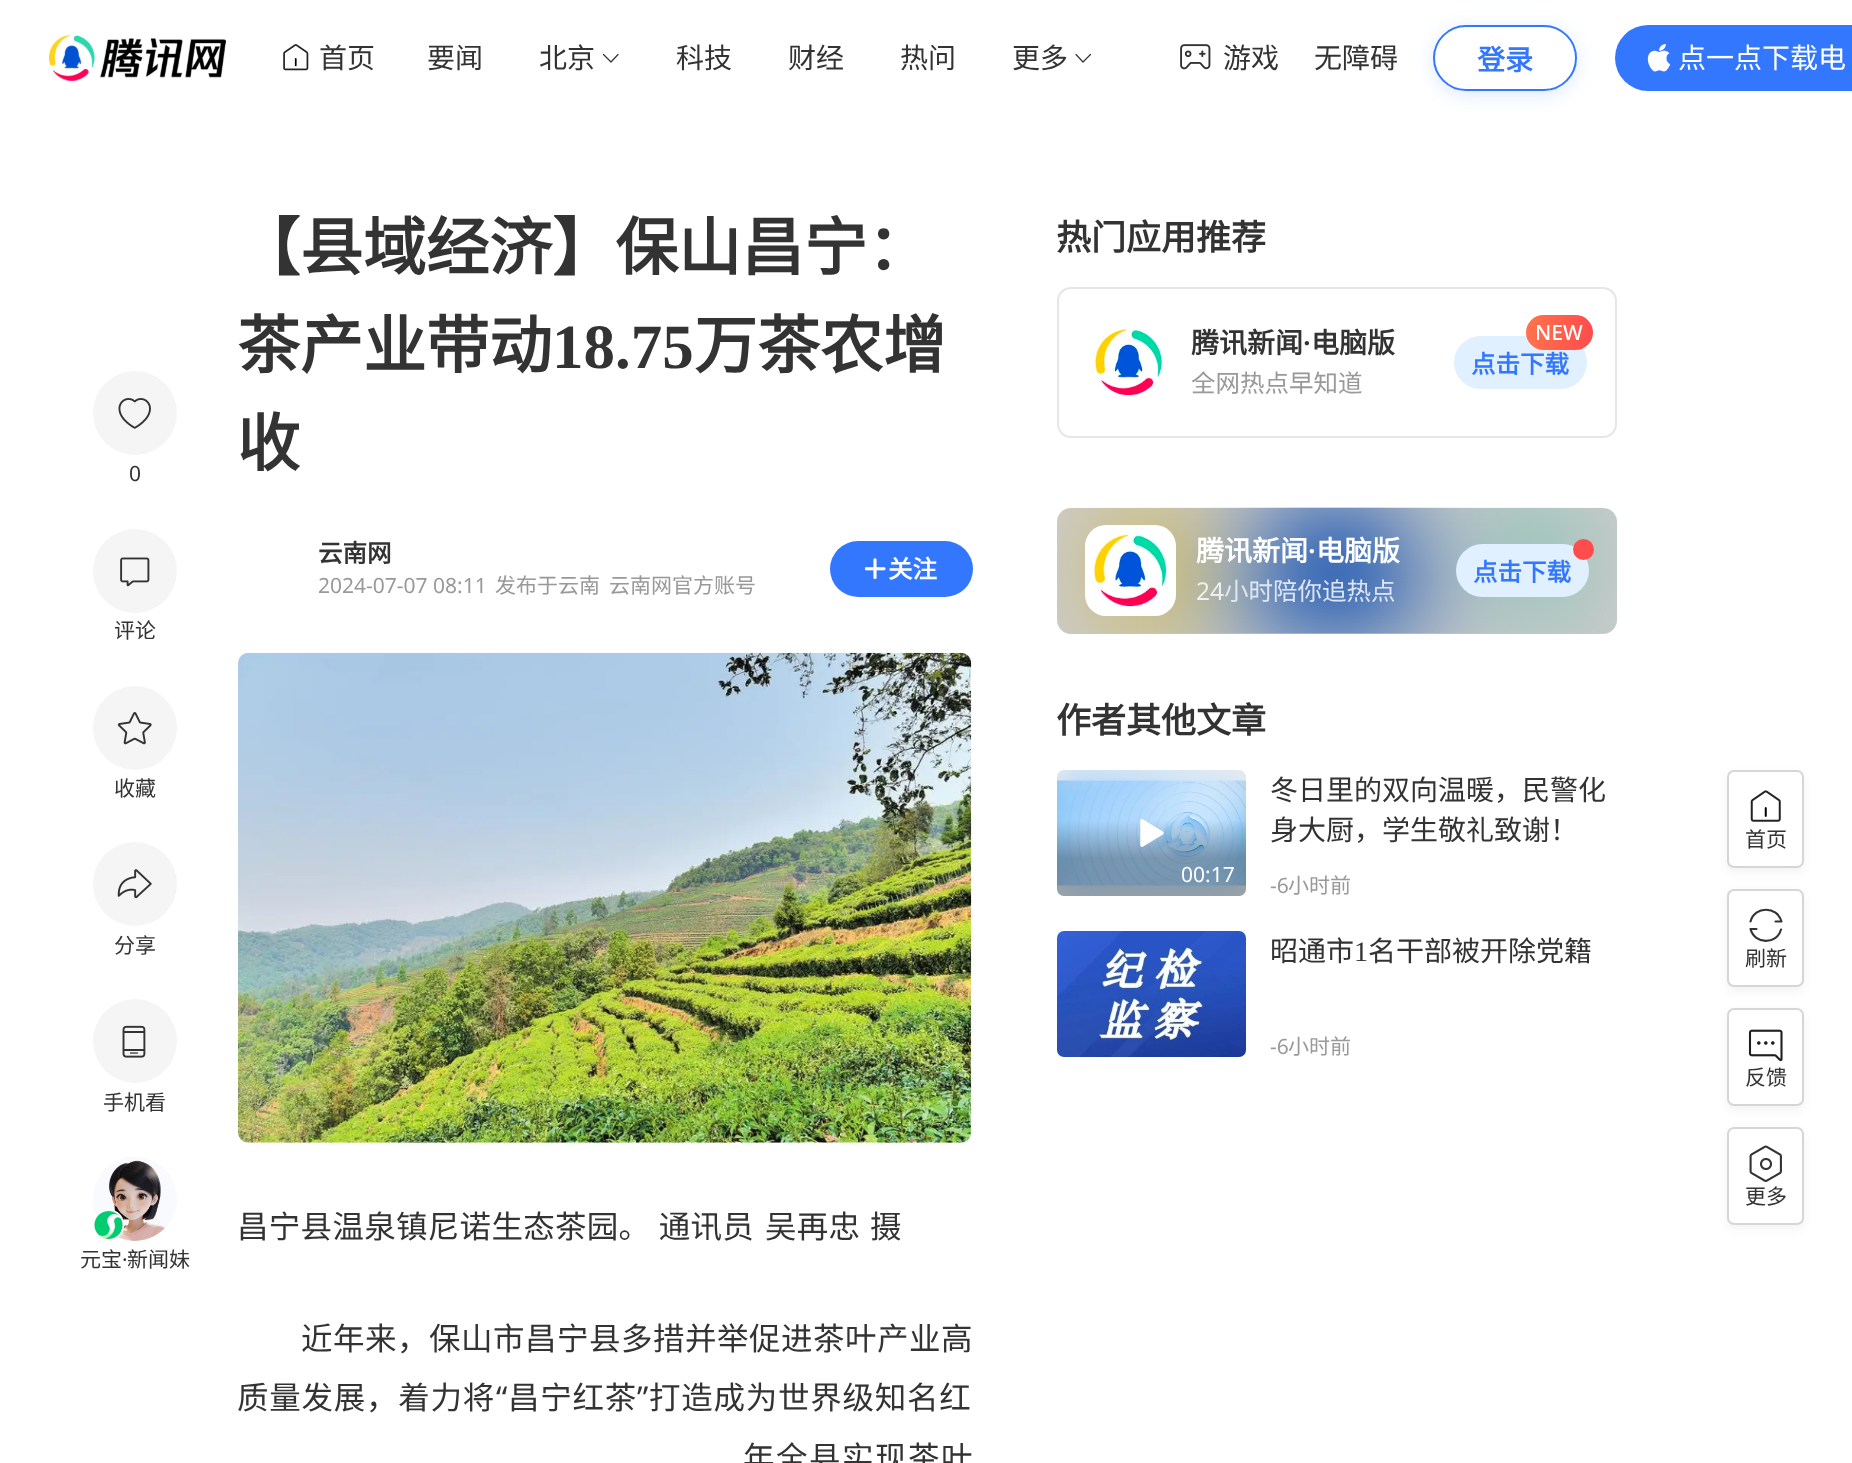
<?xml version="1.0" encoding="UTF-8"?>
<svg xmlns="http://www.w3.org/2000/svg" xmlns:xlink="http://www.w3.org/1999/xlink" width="1852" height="1463">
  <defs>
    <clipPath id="clip1"><path d="M 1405 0 h 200 v 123 h -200 z m 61 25 h 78 c 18 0 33 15 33 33 c 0 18 -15 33 -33 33 h -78 c -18 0 -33 -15 -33 -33 c 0 -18 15 -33 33 -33 z" clip-rule="evenodd" /></clipPath>
    <linearGradient id="g1" gradientUnits="userSpaceOnUse" x1="1593" y1="333" x2="1526" y2="333"><stop offset="0" stop-color="#ff4c4c" /><stop offset="1" stop-color="#ff734d" /></linearGradient>
    <linearGradient id="g2" gradientUnits="userSpaceOnUse" x1="1152" y1="896" x2="1152" y2="770"><stop offset="0.3" stop-color="#000000" stop-opacity="0.3" /><stop offset="0.6" stop-color="#000000" stop-opacity="0" /></linearGradient>
  </defs>
  <rect width="100%" height="100%" fill="#ffffff" />
  <image x="49" y="35" width="177" height="46" xlink:href="image1.png" />
  <image x="283" y="44" width="26" height="27" xlink:href="image2.png" />
  <path d="M 618 54.5 l -7 7.5 l -7.5 -7.5" fill="none" stroke="#333333" stroke-width="1.2" stroke-linecap="round" stroke-linejoin="round" />
  <path d="M 1090.5 54.5 l -7.5 7.5 l -7 -7.5" fill="none" stroke="#333333" stroke-width="1.2" stroke-linecap="round" stroke-linejoin="round" />
  <image x="1180" y="44" width="31" height="26" xlink:href="image3.png" />
  <g clip-path="url(#clip1)">
    <rect x="1433" y="28" width="144" height="67" rx="33.5" fill="#3377ff" fill-opacity="0.16" filter="blur(9px)" />
  </g>
  <rect x="1434" y="26" width="142" height="64" rx="32" fill="none" stroke="#3377ff" stroke-width="2" />
  <rect x="1615" y="25" width="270" height="66" rx="33" fill="#3377ff" />
  <image x="1647" y="44" width="24" height="28" xlink:href="image4.png" />
  <circle cx="135" cy="413" r="42" fill="#f5f5f5" />
  <image x="118" y="398" width="33" height="31" xlink:href="image5.png" />
  <circle cx="135" cy="571" r="42" fill="#f5f5f5" />
  <image x="120" y="557" width="30" height="30" xlink:href="image6.png" />
  <circle cx="135" cy="728" r="42" fill="#f5f5f5" />
  <image x="117" y="712" width="35" height="33" xlink:href="image7.png" />
  <circle cx="135" cy="884" r="42" fill="#f5f5f5" />
  <image x="117" y="869" width="35" height="30" xlink:href="image8.png" />
  <circle cx="135" cy="1041" r="42" fill="#f5f5f5" />
  <image x="122" y="1025" width="24" height="33" xlink:href="image9.png" />
  <image x="93" y="1157" width="84" height="84" xlink:href="image10.png" />
  <image x="93" y="1209" width="32" height="31" xlink:href="image11.png" />
  <rect x="830" y="541" width="143" height="56" rx="28" fill="#3377ff" />
  <image x="865" y="558" width="21" height="21" xlink:href="image12.png" />
  <image x="238" y="652" width="734" height="491" xlink:href="image13.png" />
  <rect x="1058" y="288" width="558" height="149" rx="13" fill="none" stroke="#e6e6e6" stroke-width="2" />
  <image x="1092" y="326" width="71" height="70" xlink:href="image14.png" />
  <rect x="1454" y="336" width="133" height="53" rx="26.5" fill="#e0f0ff" />
  <rect x="1526" y="315" width="67" height="35" rx="17.5" fill="url(#g1)" />
  <image x="1057" y="507" width="560" height="127" xlink:href="image15.png" />
  <rect x="1057" y="508" width="560" height="126" rx="14" fill="#000000" fill-opacity="0.2" />
  <image x="1085" y="525" width="91" height="91" xlink:href="image16.png" />
  <rect x="1456" y="544" width="133" height="53" rx="26.5" fill="#e0f0ff" />
  <circle cx="1583.5" cy="549.5" r="10.5" fill="#ff4d4d" />
  <rect x="1057" y="770" width="189" height="126" rx="7" fill="#eeeeee" />
  <image x="1057" y="770" width="189" height="126" xlink:href="image17.png" />
  <image x="1057" y="780" width="189" height="106" xlink:href="image18.png" />
  <rect x="1057" y="770" width="189" height="126" rx="7" fill="url(#g2)" />
  <image x="1140" y="819" width="24" height="28" xlink:href="image19.png" />
  <image x="1057" y="931" width="189" height="126" xlink:href="image20.png" />
  <rect x="1727" y="774" width="77" height="98" rx="7" fill="#1f1f1f" fill-opacity="0.06" filter="blur(5px)" />
  <rect x="1728" y="771" width="75" height="96" rx="6" fill="#ffffff" stroke="#d6d6d6" stroke-width="2" />
  <image x="1750" y="790" width="31" height="32" xlink:href="image21.png" />
  <rect x="1727" y="893" width="77" height="98" rx="7" fill="#1f1f1f" fill-opacity="0.06" filter="blur(5px)" />
  <rect x="1728" y="890" width="75" height="96" rx="6" fill="#ffffff" stroke="#d6d6d6" stroke-width="2" />
  <path d="M 1750.5 921.5 c 4 -16 27 -15.5 31 0 h -6 m 5.5 8 c -4 15.5 -26.5 15 -30.5 -0.5 h 6" fill="none" stroke="#333333" stroke-width="2.1" stroke-linecap="round" stroke-linejoin="round" />
  <rect x="1727" y="1012" width="77" height="98" rx="7" fill="#1f1f1f" fill-opacity="0.06" filter="blur(5px)" />
  <rect x="1728" y="1009" width="75" height="96" rx="6" fill="#ffffff" stroke="#d6d6d6" stroke-width="2" />
  <image x="1748" y="1029" width="35" height="33" xlink:href="image22.png" />
  <rect x="1727" y="1131" width="77" height="98" rx="7" fill="#1f1f1f" fill-opacity="0.06" filter="blur(5px)" />
  <rect x="1728" y="1128" width="75" height="96" rx="6" fill="#ffffff" stroke="#d6d6d6" stroke-width="2" />
  <image x="1749" y="1145" width="33" height="37" xlink:href="image23.png" />
  <text x="319" y="68" style="font-family: Noto Sans CJK SC; font-size: 28px; fill: #333333">首页</text>
  <text x="427" y="68" style="font-family: Noto Sans CJK SC; font-size: 28px; fill: #333333">要闻</text>
  <text x="539" y="68" style="font-family: Noto Sans CJK SC; font-size: 28px; fill: #333333">北京</text>
  <text x="676" y="68" style="font-family: Noto Sans CJK SC; font-size: 28px; fill: #333333">科技</text>
  <text x="788" y="68" style="font-family: Noto Sans CJK SC; font-size: 28px; fill: #333333">财经</text>
  <text x="900" y="68" style="font-family: Noto Sans CJK SC; font-size: 28px; fill: #333333">热问</text>
  <text x="1012" y="68" style="font-family: Noto Sans CJK SC; font-size: 28px; fill: #333333">更多</text>
  <text x="1223" y="68" style="font-family: Noto Sans CJK SC; font-size: 28px; fill: #333333">游戏</text>
  <text x="1314" y="68" style="font-family: Noto Sans CJK SC; font-size: 28px; fill: #333333">无障碍</text>
  <text x="1477" y="70" style="font-family: Noto Sans CJK SC; font-size: 28px; font-weight: bold; fill: #3377ff">登录</text>
  <text x="1678" y="68" style="font-family: Noto Sans CJK SC; font-size: 28px; fill: #ffffff">点一点下载电</text>
  <text x="129" y="481" style="font-family: Noto Sans; font-size: 21px; fill: #333333">0</text>
  <text x="114" y="638" style="font-family: Noto Sans CJK SC; font-size: 21px; fill: #333333">评论</text>
  <text x="114" y="796" style="font-family: Noto Sans CJK SC; font-size: 21px; fill: #333333">收藏</text>
  <text x="114" y="953" style="font-family: Noto Sans CJK SC; font-size: 21px; fill: #333333">分享</text>
  <text x="103" y="1110" style="font-family: Noto Sans CJK SC; font-size: 21px; fill: #333333">手机看</text>
  <text x="80" y="1267" style="font-family: Noto Sans CJK SC; font-size: 21px; fill: #333333">元宝</text>
  <text x="122" y="1267" style="font-family: Noto Sans; font-size: 21px; fill: #333333">·</text>
  <text x="127" y="1267" style="font-family: Noto Sans CJK SC; font-size: 21px; fill: #333333">新闻妹</text>
  <text x="237" y="270" style="font-family: Noto Sans CJK SC; font-size: 63px; font-weight: bold; fill: #333333">【县域经济】保山昌宁：</text>
  <text x="237" y="368" style="font-family: Noto Sans CJK SC; font-size: 63px; font-weight: bold; fill: #333333">茶产业带动</text>
  <text x="552" y="368" style="font-family: Liberation Serif; font-size: 63px; font-weight: bold; fill: #333333">18.75</text>
  <text x="694" y="368" style="font-family: Noto Sans CJK SC; font-size: 63px; font-weight: bold; fill: #333333">万茶农增</text>
  <text x="237" y="466" style="font-family: Noto Sans CJK SC; font-size: 63px; font-weight: bold; fill: #333333">收</text>
  <text x="318" y="562" style="font-family: Noto Sans CJK SC; font-size: 24.5px; font-weight: bold; fill: #333333">云南网</text>
  <text x="318" y="593" style="font-family: Noto Sans; font-size: 21px; fill: #999999">2024-07-07 08:11</text>
  <text x="495" y="593" style="font-family: Noto Sans CJK SC; font-size: 21px; fill: #999999">发布于云南</text>
  <text x="609" y="593" style="font-family: Noto Sans CJK SC; font-size: 21px; fill: #999999">云南网官方账号</text>
  <text x="888" y="578" style="font-family: Noto Sans CJK SC; font-size: 24.5px; font-weight: bold; fill: #ffffff">关注</text>
  <text x="237" y="1238" word-spacing="1" style="font-family: Noto Sans CJK SC; font-size: 31.5px; letter-spacing: 0.3px; fill: #333333">昌宁县温泉镇尼诺生态茶园。 通讯员</text>
  <text x="765" y="1238" style="font-family: Noto Sans CJK SC; font-size: 31.5px; letter-spacing: 0.3px; fill: #333333">吴再忠</text>
  <text x="870" y="1238" style="font-family: Noto Sans CJK SC; font-size: 31.5px; letter-spacing: 0.3px; fill: #333333">摄</text>
  <text x="301" y="1350" style="font-family: Noto Sans CJK SC; font-size: 31.5px; letter-spacing: 0.5px; fill: #333333">近年来，保山市昌宁县多措并举促进茶叶产业高</text>
  <text x="237" y="1409" style="font-family: Noto Sans CJK SC; font-size: 31.5px; letter-spacing: 0.75px; fill: #333333">质量发展，着力将</text>
  <text x="496" y="1409" style="font-family: Noto Sans; font-size: 31.5px; letter-spacing: 0.75px; fill: #333333">“</text>
  <text x="508" y="1409" style="font-family: Noto Sans CJK SC; font-size: 31.5px; letter-spacing: 0.75px; fill: #333333">昌宁红茶</text>
  <text x="637" y="1409" style="font-family: Noto Sans; font-size: 31.5px; letter-spacing: 0.75px; fill: #333333">”</text>
  <text x="649" y="1409" style="font-family: Noto Sans CJK SC; font-size: 31.5px; letter-spacing: 0.75px; fill: #333333">打造成为世界级知名红</text>
  <text x="743" y="1469" style="font-family: Noto Sans CJK SC; font-size: 31.5px; letter-spacing: 1.5px; fill: #333333">年全县实现茶叶</text>
  <text x="1056" y="250" style="font-family: Noto Sans CJK SC; font-size: 35px; font-weight: bold; fill: #333333">热门应用推荐</text>
  <text x="1191" y="353" style="font-family: Noto Sans CJK SC; font-size: 28px; font-weight: bold; fill: #333333">腾讯新闻</text>
  <text x="1303" y="353" style="font-family: Noto Sans; font-size: 28px; font-weight: 600; fill: #333333">·</text>
  <text x="1311" y="353" style="font-family: Noto Sans CJK SC; font-size: 28px; font-weight: bold; fill: #333333">电脑版</text>
  <text x="1191" y="392" style="font-family: Noto Sans CJK SC; font-size: 24.5px; fill: #999999">全网热点早知道</text>
  <text x="1535" y="340" style="font-family: Noto Sans; font-size: 21px; font-weight: 500; fill: #ffffff">NEW</text>
  <text x="1471" y="373" style="font-family: Noto Sans CJK SC; font-size: 24.5px; font-weight: bold; fill: #3377ff">点击下载</text>
  <text x="1196" y="561" style="font-family: Noto Sans CJK SC; font-size: 28px; font-weight: bold; fill: #ffffff">腾讯新闻</text>
  <text x="1308" y="561" style="font-family: Noto Sans; font-size: 28px; font-weight: 600; fill: #ffffff">·</text>
  <text x="1316" y="561" style="font-family: Noto Sans CJK SC; font-size: 28px; font-weight: bold; fill: #ffffff">电脑版</text>
  <text x="1196" y="600" style="font-family: Noto Sans; font-size: 24.5px; fill: #eff0ed">24</text>
  <text x="1224" y="600" style="font-family: Noto Sans CJK SC; font-size: 24.5px; fill: #dfe6f1">小时陪你追热点</text>
  <text x="1473" y="581" style="font-family: Noto Sans CJK SC; font-size: 24.5px; font-weight: bold; fill: #3377ff">点击下载</text>
  <text x="1056" y="733" style="font-family: Noto Sans CJK SC; font-size: 35px; font-weight: bold; fill: #333333">作者其他文章</text>
  <text x="1181" y="882" style="font-family: Noto Sans; font-size: 21px; fill: #ffffff">00:17</text>
  <text x="1270" y="800" style="font-family: Noto Sans CJK SC; font-size: 28px; fill: #333333">冬日里的双向温暖，民警化</text>
  <text x="1270" y="840" style="font-family: Noto Sans CJK SC; font-size: 28px; fill: #333333">身大厨，学生敬礼致谢！</text>
  <text x="1270" y="893" style="font-family: Noto Sans; font-size: 21px; fill: #999999">-6</text>
  <text x="1288" y="893" style="font-family: Noto Sans CJK SC; font-size: 21px; fill: #999999">小时前</text>
  <text x="1270" y="961" style="font-family: Noto Sans CJK SC; font-size: 28px; fill: #333333">昭通市</text>
  <text x="1354" y="961" style="font-family: Liberation Serif; font-size: 28px; fill: #333333">1</text>
  <text x="1368" y="961" style="font-family: Noto Sans CJK SC; font-size: 28px; fill: #333333">名干部被开除党籍</text>
  <text x="1270" y="1054" style="font-family: Noto Sans; font-size: 21px; fill: #999999">-6</text>
  <text x="1288" y="1054" style="font-family: Noto Sans CJK SC; font-size: 21px; fill: #999999">小时前</text>
  <text x="1745" y="847" style="font-family: Noto Sans CJK SC; font-size: 21px; fill: #333333">首页</text>
  <text x="1745" y="966" style="font-family: Noto Sans CJK SC; font-size: 21px; fill: #333333">刷新</text>
  <text x="1745" y="1085" style="font-family: Noto Sans CJK SC; font-size: 21px; fill: #333333">反馈</text>
  <text x="1745" y="1204" style="font-family: Noto Sans CJK SC; font-size: 21px; fill: #333333">更多</text>
</svg>
